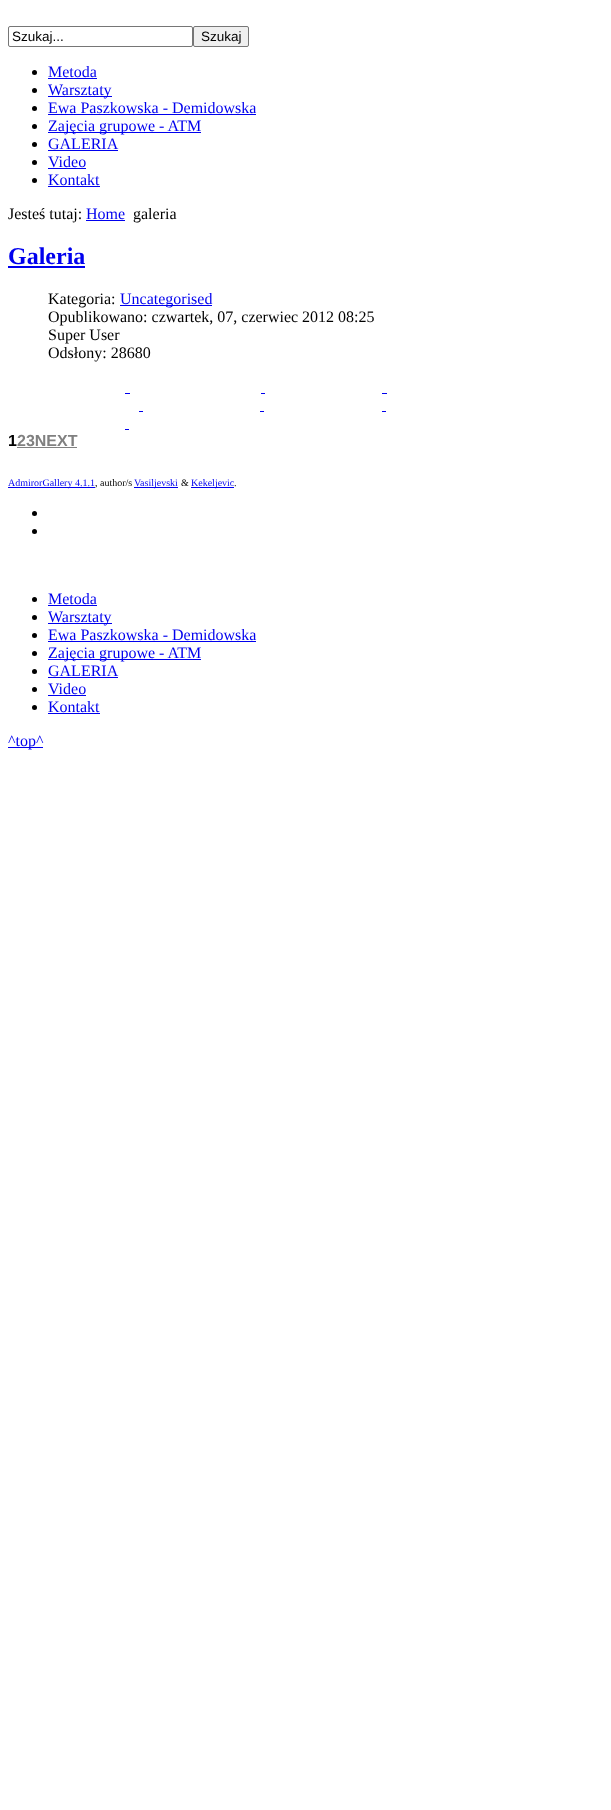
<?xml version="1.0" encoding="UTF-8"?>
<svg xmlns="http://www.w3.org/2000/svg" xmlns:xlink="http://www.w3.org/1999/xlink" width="611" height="1810">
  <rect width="100%" height="100%" fill="#ffffff" />
  <rect x="8.5" y="26.5" width="184" height="20" rx="1.5" fill="none" stroke="#767676" />
  <rect x="193.5" y="26.5" width="55" height="20" rx="1.5" fill="#efefef" stroke="#767676" />
  <circle cx="34.5" cy="72.5" r="2.5" fill="#000000" />
  <rect x="48" y="78" width="49" height="1" fill="#0000ee" />
  <circle cx="34.5" cy="90.5" r="2.5" fill="#000000" />
  <rect x="48" y="96" width="64" height="1" fill="#0000ee" />
  <circle cx="34.5" cy="108.5" r="2.5" fill="#000000" />
  <rect x="48" y="114" width="208" height="1" fill="#0000ee" />
  <circle cx="34.5" cy="126.5" r="2.5" fill="#000000" />
  <rect x="48" y="132" width="153" height="1" fill="#0000ee" />
  <circle cx="34.5" cy="144.5" r="2.5" fill="#000000" />
  <rect x="48" y="150" width="70" height="1" fill="#0000ee" />
  <circle cx="34.5" cy="162.5" r="2.5" fill="#000000" />
  <rect x="48" y="168" width="38" height="1" fill="#0000ee" />
  <circle cx="34.5" cy="180.5" r="2.5" fill="#000000" />
  <rect x="48" y="186" width="52" height="1" fill="#0000ee" />
  <rect x="86" y="220" width="39" height="1" fill="#0000ee" />
  <rect x="8" y="266" width="77" height="2" fill="#0000ee" />
  <rect x="120" y="305" width="92" height="1" fill="#0000ee" />
  <rect x="125" y="393" width="5" height="1" fill="#0000ee" />
  <rect x="261" y="393" width="4" height="1" fill="#0000ee" />
  <rect x="382" y="393" width="5" height="1" fill="#0000ee" />
  <rect x="139" y="411" width="4" height="1" fill="#0000ee" />
  <rect x="260" y="411" width="4" height="1" fill="#0000ee" />
  <rect x="382" y="411" width="4" height="1" fill="#0000ee" />
  <rect x="125" y="429" width="4" height="1" fill="#0000ee" />
  <rect x="17" y="447" width="60" height="1" fill="#808080" />
  <rect x="8" y="487" width="87" height="1" fill="#0000ee" />
  <rect x="134" y="487" width="44" height="1" fill="#0000ee" />
  <rect x="191" y="487" width="43" height="1" fill="#0000ee" />
  <circle cx="34.5" cy="513.5" r="2.5" fill="#000000" />
  <circle cx="34.5" cy="531.5" r="2.5" fill="#000000" />
  <circle cx="34.5" cy="599.5" r="2.5" fill="#000000" />
  <rect x="48" y="605" width="49" height="1" fill="#0000ee" />
  <circle cx="34.5" cy="617.5" r="2.5" fill="#000000" />
  <rect x="48" y="623" width="64" height="1" fill="#0000ee" />
  <circle cx="34.5" cy="635.5" r="2.5" fill="#000000" />
  <rect x="48" y="641" width="208" height="1" fill="#0000ee" />
  <circle cx="34.5" cy="653.5" r="2.5" fill="#000000" />
  <rect x="48" y="659" width="153" height="1" fill="#0000ee" />
  <circle cx="34.5" cy="671.5" r="2.5" fill="#000000" />
  <rect x="48" y="677" width="70" height="1" fill="#0000ee" />
  <circle cx="34.5" cy="689.5" r="2.5" fill="#000000" />
  <rect x="48" y="695" width="38" height="1" fill="#0000ee" />
  <circle cx="34.5" cy="707.5" r="2.5" fill="#000000" />
  <rect x="48" y="713" width="52" height="1" fill="#0000ee" />
  <rect x="8" y="747" width="35" height="1" fill="#0000ee" />
  <text x="12" y="41" style="font-family: Liberation Sans; font-size: 13.5px; fill: #000000">Szukaj...</text>
  <text x="201" y="41" style="font-family: Liberation Sans; font-size: 13.5px; fill: #000000">Szukaj</text>
  <text x="48" y="77" style="font-family: Liberation Serif; font-size: 16px; fill: #0000ee">Metoda</text>
  <text x="48" y="95" style="font-family: Liberation Serif; font-size: 16px; fill: #0000ee">Warsztaty</text>
  <text x="48" y="113" style="font-family: Liberation Serif; font-size: 16px; fill: #0000ee">Ewa Paszkowska - Demidowska</text>
  <text x="48" y="131" style="font-family: Liberation Serif; font-size: 16px; fill: #0000ee">Zajęcia grupowe - ATM</text>
  <text x="48" y="149" style="font-family: Liberation Serif; font-size: 16px; fill: #0000ee">GALERIA</text>
  <text x="48" y="167" style="font-family: Liberation Serif; font-size: 16px; fill: #0000ee">Video</text>
  <text x="48" y="185" style="font-family: Liberation Serif; font-size: 16px; fill: #0000ee">Kontakt</text>
  <text x="8" y="219" style="font-family: Liberation Serif; font-size: 16px; fill: #000000">Jesteś tutaj:</text>
  <text x="86" y="219" style="font-family: Liberation Serif; font-size: 16px; fill: #0000ee">Home</text>
  <text x="133" y="219" style="font-family: Liberation Serif; font-size: 16px; fill: #000000">galeria</text>
  <text x="8" y="264" style="font-family: Liberation Serif; font-size: 24px; font-weight: bold; fill: #0000ee">Galeria</text>
  <text x="48" y="304" style="font-family: Liberation Serif; font-size: 16px; fill: #000000">Kategoria:</text>
  <text x="120" y="304" style="font-family: Liberation Serif; font-size: 16px; fill: #0000ee">Uncategorised</text>
  <text x="48" y="322" style="font-family: Liberation Serif; font-size: 16px; fill: #000000">Opublikowano: czwartek, 07, czerwiec 2012 08:25</text>
  <text x="48" y="340" style="font-family: Liberation Serif; font-size: 16px; fill: #000000">Super User</text>
  <text x="48" y="358" style="font-family: Liberation Serif; font-size: 16px; fill: #000000">Odsłony: 28680</text>
  <text x="8" y="446" style="font-family: Liberation Sans; font-size: 16px; font-weight: bold; fill: #000000">1</text>
  <text x="17" y="446" style="font-family: Liberation Sans; font-size: 16px; font-weight: bold; fill: #808080">23NEXT</text>
  <text x="8" y="486" style="font-family: Liberation Serif; font-size: 10px; fill: #0000ee">AdmirorGallery 4.1.1</text>
  <text x="95" y="486" style="font-family: Liberation Serif; font-size: 10px; fill: #000000">, author/s</text>
  <text x="134" y="486" style="font-family: Liberation Serif; font-size: 10px; fill: #0000ee">Vasiljevski</text>
  <text x="181" y="486" style="font-family: Liberation Serif; font-size: 10px; fill: #000000">&amp;</text>
  <text x="191" y="486" style="font-family: Liberation Serif; font-size: 10px; fill: #0000ee">Kekeljevic</text>
  <text x="234" y="486" style="font-family: Liberation Serif; font-size: 10px; fill: #000000">.</text>
  <text x="48" y="604" style="font-family: Liberation Serif; font-size: 16px; fill: #0000ee">Metoda</text>
  <text x="48" y="622" style="font-family: Liberation Serif; font-size: 16px; fill: #0000ee">Warsztaty</text>
  <text x="48" y="640" style="font-family: Liberation Serif; font-size: 16px; fill: #0000ee">Ewa Paszkowska - Demidowska</text>
  <text x="48" y="658" style="font-family: Liberation Serif; font-size: 16px; fill: #0000ee">Zajęcia grupowe - ATM</text>
  <text x="48" y="676" style="font-family: Liberation Serif; font-size: 16px; fill: #0000ee">GALERIA</text>
  <text x="48" y="694" style="font-family: Liberation Serif; font-size: 16px; fill: #0000ee">Video</text>
  <text x="48" y="712" style="font-family: Liberation Serif; font-size: 16px; fill: #0000ee">Kontakt</text>
  <text x="8" y="746" style="font-family: Liberation Serif; font-size: 16px; fill: #0000ee">^top^</text>
</svg>
